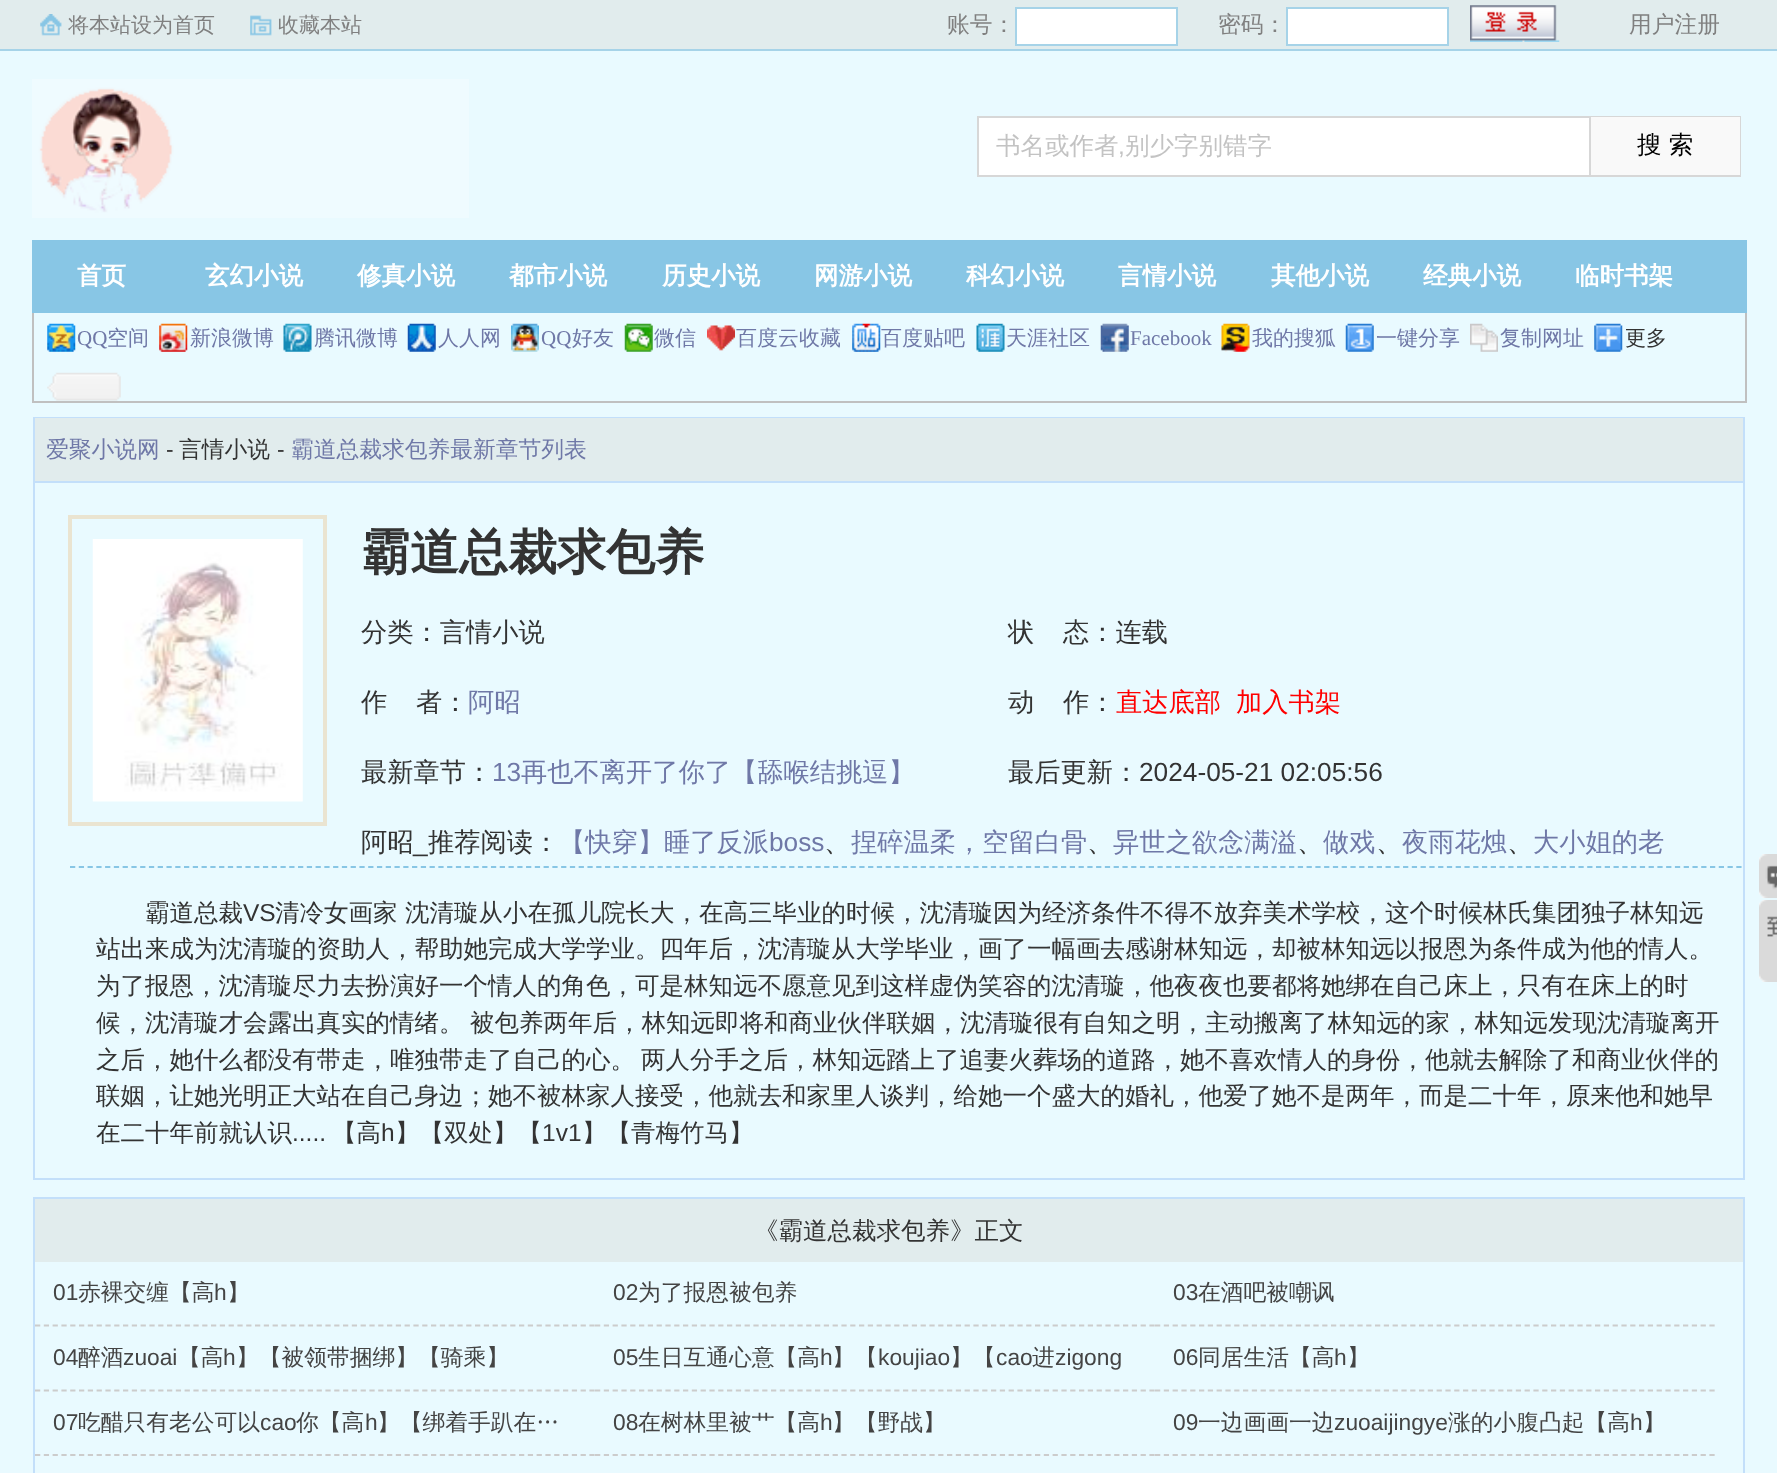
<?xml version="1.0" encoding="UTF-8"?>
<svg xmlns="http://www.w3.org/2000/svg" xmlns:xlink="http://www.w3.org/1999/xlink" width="1777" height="1473">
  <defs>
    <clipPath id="clip1"><rect x="35" y="418" width="1708" height="760" /></clipPath>
  </defs>
  <rect width="100%" height="100%" fill="#e9faff" />
  <rect width="1777" height="49" fill="#e1eced" />
  <rect y="49" width="1777" height="2" fill="#a6d3e8" />
  <image x="40" y="14" width="22" height="22" xlink:href="image1.png" />
  <image x="250" y="15" width="22" height="21" xlink:href="image2.png" />
  <rect x="1016" y="8" width="161" height="37" fill="#ffffff" stroke="#a6d3e8" stroke-width="2" />
  <rect x="1287" y="8" width="161" height="37" fill="#ffffff" stroke="#a6d3e8" stroke-width="2" />
  <image x="1470" y="5" width="90" height="37" xlink:href="image3.png" />
  <image x="32" y="79" width="437" height="139" xlink:href="image4.png" />
  <rect x="979" y="118" width="610" height="57" fill="#ffffff" />
  <rect x="977" y="116" width="612" height="2" fill="#d7d7d7" />
  <rect x="977" y="175" width="612" height="2" fill="#d7d7d7" />
  <rect x="977" y="116" width="2" height="61" fill="#d7d7d7" />
  <rect x="1590" y="117" width="150" height="59" fill="none" stroke="#d7d7d7" stroke-width="2" />
  <rect x="1591" y="117" width="149" height="58" fill="#f9f9f9" />
  <rect x="32" y="240" width="1715" height="73" fill="#88c6e5" />
  <rect x="1745" y="313" width="2" height="90" fill="#c0c0c0" />
  <rect x="32" y="401" width="1715" height="2" fill="#c0c0c0" />
  <rect x="32" y="313" width="2" height="90" fill="#c0c0c0" />
  <image x="47" y="323" width="29" height="29" xlink:href="image5.png" />
  <image x="159" y="323" width="29" height="29" xlink:href="image6.png" />
  <image x="283" y="323" width="29" height="29" xlink:href="image7.png" />
  <image x="407" y="323" width="29" height="29" xlink:href="image8.png" />
  <image x="511" y="323" width="28" height="29" xlink:href="image9.png" />
  <image x="624" y="323" width="29" height="29" xlink:href="image10.png" />
  <image x="707" y="325" width="28" height="26" xlink:href="image11.png" />
  <image x="852" y="323" width="29" height="29" xlink:href="image12.png" />
  <image x="976" y="323" width="29" height="29" xlink:href="image13.png" />
  <image x="1100" y="323" width="29" height="29" xlink:href="image14.png" />
  <image x="1221" y="323" width="29" height="29" xlink:href="image15.png" />
  <image x="1345" y="323" width="29" height="29" xlink:href="image16.png" />
  <image x="1470" y="323" width="28" height="29" xlink:href="image17.png" />
  <image x="1594" y="323" width="29" height="29" xlink:href="image18.png" />
  <image x="47" y="372" width="74" height="29" xlink:href="image19.png" />
  <rect x="34" y="418" width="1710" height="761" fill="none" stroke="#c3dffa" stroke-width="2" />
  <rect x="35" y="481" width="1708" height="2" fill="#c3dffa" />
  <rect x="35" y="418" width="1708" height="63" fill="#e1eced" />
  <rect x="70" y="517" width="255" height="307" fill="none" stroke="#eae4d1" stroke-width="4" />
  <image x="92" y="539" width="211" height="263" xlink:href="image20.png" />
  <g clip-path="url(#clip1)">
    <path d="M 70 867 h 1680" fill="none" stroke="#88c6e5" stroke-width="1.8" stroke-dasharray="5.25 3.52" />
  </g>
  <image x="1759" y="854" width="18" height="44" xlink:href="image21.png" />
  <image x="1759" y="900" width="18" height="82" xlink:href="image22.png" />
  <rect x="34" y="1198" width="1710" height="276" fill="none" stroke="#c3dffa" stroke-width="2" />
  <rect x="35" y="1199" width="1708" height="63" fill="#e1eced" />
  <path d="M 35 1325.5 h 560" fill="none" stroke="#cccccc" stroke-width="1.8" stroke-dasharray="5.25 3.55" />
  <path d="M 595 1325.5 h 560" fill="none" stroke="#cccccc" stroke-width="1.8" stroke-dasharray="5.25 3.55" />
  <path d="M 1155 1325.5 h 560" fill="none" stroke="#cccccc" stroke-width="1.8" stroke-dasharray="5.25 3.55" />
  <path d="M 35 1390.5 h 560" fill="none" stroke="#cccccc" stroke-width="1.8" stroke-dasharray="5.25 3.55" />
  <path d="M 595 1390.5 h 560" fill="none" stroke="#cccccc" stroke-width="1.8" stroke-dasharray="5.25 3.55" />
  <path d="M 1155 1390.5 h 560" fill="none" stroke="#cccccc" stroke-width="1.8" stroke-dasharray="5.25 3.55" />
  <path d="M 35 1455 h 560" fill="none" stroke="#cccccc" stroke-width="1.8" stroke-dasharray="5.25 3.55" />
  <path d="M 595 1455 h 560" fill="none" stroke="#cccccc" stroke-width="1.8" stroke-dasharray="5.25 3.55" />
  <path d="M 1155 1455 h 560" fill="none" stroke="#cccccc" stroke-width="1.8" stroke-dasharray="5.25 3.55" />
  <text x="68" y="32" style="font-family: WenQuanYi Zen Hei; font-size: 21px; font-weight: 500; fill: #808080">将本站设为首页</text>
  <text x="278" y="32" style="font-family: WenQuanYi Zen Hei; font-size: 21px; font-weight: 500; fill: #808080">收藏本站</text>
  <text x="947" y="32" style="font-family: WenQuanYi Zen Hei; font-size: 22.75px; font-weight: 500; fill: #808080">账号：</text>
  <text x="1218" y="32" style="font-family: WenQuanYi Zen Hei; font-size: 22.75px; font-weight: 500; fill: #808080">密码：</text>
  <text x="1629" y="32" style="font-family: WenQuanYi Zen Hei; font-size: 22.75px; font-weight: 500; fill: #808080">用户注册</text>
  <text x="996" y="154" style="font-family: WenQuanYi Zen Hei; font-size: 24.5px; font-weight: 500; fill: #c3c3c3">书名或作者</text>
  <text x="1118" y="154" style="font-family: Liberation Sans; font-size: 24.5px; fill: #c3c3c3">,</text>
  <text x="1125" y="154" style="font-family: WenQuanYi Zen Hei; font-size: 24.5px; font-weight: 500; fill: #c3c3c3">别少字别错字</text>
  <text x="1637" y="153" style="font-family: WenQuanYi Zen Hei; font-size: 24.5px; font-weight: 500; fill: #000000">搜 索</text>
  <text x="77" y="284" style="font-family: WenQuanYi Zen Hei; font-size: 24.5px; font-weight: bold; fill: #ffffff">首页</text>
  <text x="205" y="284" style="font-family: WenQuanYi Zen Hei; font-size: 24.5px; font-weight: bold; fill: #ffffff">玄幻小说</text>
  <text x="357" y="284" style="font-family: WenQuanYi Zen Hei; font-size: 24.5px; font-weight: bold; fill: #ffffff">修真小说</text>
  <text x="509" y="284" style="font-family: WenQuanYi Zen Hei; font-size: 24.5px; font-weight: bold; fill: #ffffff">都市小说</text>
  <text x="662" y="284" style="font-family: WenQuanYi Zen Hei; font-size: 24.5px; font-weight: bold; fill: #ffffff">历史小说</text>
  <text x="814" y="284" style="font-family: WenQuanYi Zen Hei; font-size: 24.5px; font-weight: bold; fill: #ffffff">网游小说</text>
  <text x="966" y="284" style="font-family: WenQuanYi Zen Hei; font-size: 24.5px; font-weight: bold; fill: #ffffff">科幻小说</text>
  <text x="1118" y="284" style="font-family: WenQuanYi Zen Hei; font-size: 24.5px; font-weight: bold; fill: #ffffff">言情小说</text>
  <text x="1271" y="284" style="font-family: WenQuanYi Zen Hei; font-size: 24.5px; font-weight: bold; fill: #ffffff">其他小说</text>
  <text x="1423" y="284" style="font-family: WenQuanYi Zen Hei; font-size: 24.5px; font-weight: bold; fill: #ffffff">经典小说</text>
  <text x="1575" y="284" style="font-family: WenQuanYi Zen Hei; font-size: 24.5px; font-weight: bold; fill: #ffffff">临时书架</text>
  <text x="77" y="345" style="font-family: Liberation Serif; font-size: 21px; fill: #6f78a7">QQ</text>
  <text x="107" y="345" style="font-family: WenQuanYi Zen Hei; font-size: 21px; font-weight: 500; fill: #6f78a7">空间</text>
  <text x="190" y="345" style="font-family: WenQuanYi Zen Hei; font-size: 21px; font-weight: 500; fill: #6f78a7">新浪微博</text>
  <text x="314" y="345" style="font-family: WenQuanYi Zen Hei; font-size: 21px; font-weight: 500; fill: #6f78a7">腾讯微博</text>
  <text x="438" y="345" style="font-family: WenQuanYi Zen Hei; font-size: 21px; font-weight: 500; fill: #6f78a7">人人网</text>
  <text x="541" y="345" style="font-family: Liberation Serif; font-size: 21px; fill: #6f78a7">QQ</text>
  <text x="572" y="345" style="font-family: WenQuanYi Zen Hei; font-size: 21px; font-weight: 500; fill: #6f78a7">好友</text>
  <text x="654" y="345" style="font-family: WenQuanYi Zen Hei; font-size: 21px; font-weight: 500; fill: #6f78a7">微信</text>
  <text x="736" y="345" style="font-family: WenQuanYi Zen Hei; font-size: 21px; font-weight: 500; fill: #6f78a7">百度云收藏</text>
  <text x="881" y="345" style="font-family: WenQuanYi Zen Hei; font-size: 21px; font-weight: 500; fill: #6f78a7">百度贴吧</text>
  <text x="1006" y="345" style="font-family: WenQuanYi Zen Hei; font-size: 21px; font-weight: 500; fill: #6f78a7">天涯社区</text>
  <text x="1130" y="345" style="font-family: Liberation Serif; font-size: 21px; fill: #6f78a7">Facebook</text>
  <text x="1252" y="345" style="font-family: WenQuanYi Zen Hei; font-size: 21px; font-weight: 500; fill: #6f78a7">我的搜狐</text>
  <text x="1376" y="345" style="font-family: WenQuanYi Zen Hei; font-size: 21px; font-weight: 500; fill: #6f78a7">一键分享</text>
  <text x="1500" y="345" style="font-family: WenQuanYi Zen Hei; font-size: 21px; font-weight: 500; fill: #6f78a7">复制网址</text>
  <text x="1625" y="345" style="font-family: WenQuanYi Zen Hei; font-size: 21px; font-weight: 500; fill: #333333">更多</text>
  <text x="46" y="457" style="font-family: WenQuanYi Zen Hei; font-size: 22.75px; font-weight: 500; fill: #6f78a7">爱聚小说网</text>
  <text x="166" y="457" style="font-family: Liberation Sans; font-size: 22.75px; fill: #333333">-</text>
  <text x="179" y="457" style="font-family: WenQuanYi Zen Hei; font-size: 22.75px; font-weight: 500; fill: #333333">言情小说</text>
  <text x="277" y="457" style="font-family: Liberation Sans; font-size: 22.75px; fill: #333333">-</text>
  <text x="291" y="457" style="font-family: WenQuanYi Zen Hei; font-size: 22.75px; font-weight: 500; fill: #6f78a7">霸道总裁求包养最新章节列表</text>
  <text x="361" y="569" style="font-family: WenQuanYi Zen Hei; font-size: 49px; font-weight: bold; fill: #333333">霸道总裁求包养</text>
  <text x="361" y="641" style="font-family: WenQuanYi Zen Hei; font-size: 26.25px; font-weight: 500; fill: #333333">分类：言情小说</text>
  <text x="1008" y="641" style="font-family: WenQuanYi Zen Hei; font-size: 26.25px; font-weight: 500; fill: #333333">状</text>
  <text x="1063" y="641" style="font-family: WenQuanYi Zen Hei; font-size: 26.25px; font-weight: 500; fill: #333333">态：连载</text>
  <text x="361" y="711" style="font-family: WenQuanYi Zen Hei; font-size: 26.25px; font-weight: 500; fill: #333333">作</text>
  <text x="416" y="711" style="font-family: WenQuanYi Zen Hei; font-size: 26.25px; font-weight: 500; fill: #333333">者：</text>
  <text x="468" y="711" style="font-family: WenQuanYi Zen Hei; font-size: 26.25px; font-weight: 500; fill: #6f78a7">阿昭</text>
  <text x="1008" y="711" style="font-family: WenQuanYi Zen Hei; font-size: 26.25px; font-weight: 500; fill: #333333">动</text>
  <text x="1063" y="711" style="font-family: WenQuanYi Zen Hei; font-size: 26.25px; font-weight: 500; fill: #333333">作：</text>
  <text x="1116" y="711" style="font-family: WenQuanYi Zen Hei; font-size: 26.25px; font-weight: 500; fill: #ff0000">直达底部</text>
  <text x="1236" y="711" style="font-family: WenQuanYi Zen Hei; font-size: 26.25px; font-weight: 500; fill: #ff0000">加入书架</text>
  <text x="361" y="781" style="font-family: WenQuanYi Zen Hei; font-size: 26.25px; font-weight: 500; fill: #333333">最新章节：</text>
  <text x="492" y="781" style="font-family: Liberation Sans; font-size: 26.25px; fill: #6f78a7">13</text>
  <text x="521" y="781" style="font-family: WenQuanYi Zen Hei; font-size: 26.25px; font-weight: 500; fill: #6f78a7">再也不离开了你了【舔喉结挑逗】</text>
  <text x="1008" y="781" style="font-family: WenQuanYi Zen Hei; font-size: 26.25px; font-weight: 500; fill: #333333">最后更新：</text>
  <text x="1139" y="781" style="font-family: Liberation Sans; font-size: 26.25px; fill: #333333">2024-05-21 02:05:56</text>
  <text x="361" y="851" style="font-family: WenQuanYi Zen Hei; font-size: 26.25px; font-weight: 500; fill: #333333">阿昭</text>
  <text x="428" y="851" style="font-family: WenQuanYi Zen Hei; font-size: 26.25px; font-weight: 500; fill: #333333">推荐阅读：</text>
  <text x="559" y="851" style="font-family: WenQuanYi Zen Hei; font-size: 26.25px; font-weight: 500; fill: #6f78a7">【快穿】睡了反派</text>
  <text x="769" y="851" style="font-family: Liberation Sans; font-size: 26.25px; fill: #6f78a7">boss</text>
  <text x="824" y="851" style="font-family: WenQuanYi Zen Hei; font-size: 26.25px; font-weight: 500; fill: #333333">、</text>
  <text x="851" y="851" style="font-family: WenQuanYi Zen Hei; font-size: 26.25px; font-weight: 500; fill: #6f78a7">捏碎温柔，空留白骨</text>
  <text x="1087" y="851" style="font-family: WenQuanYi Zen Hei; font-size: 26.25px; font-weight: 500; fill: #333333">、</text>
  <text x="1113" y="851" style="font-family: WenQuanYi Zen Hei; font-size: 26.25px; font-weight: 500; fill: #6f78a7">异世之欲念满溢</text>
  <text x="1297" y="851" style="font-family: WenQuanYi Zen Hei; font-size: 26.25px; font-weight: 500; fill: #333333">、</text>
  <text x="1323" y="851" style="font-family: WenQuanYi Zen Hei; font-size: 26.25px; font-weight: 500; fill: #6f78a7">做戏</text>
  <text x="1376" y="851" style="font-family: WenQuanYi Zen Hei; font-size: 26.25px; font-weight: 500; fill: #333333">、</text>
  <text x="1402" y="851" style="font-family: WenQuanYi Zen Hei; font-size: 26.25px; font-weight: 500; fill: #6f78a7">夜雨花烛</text>
  <text x="1507" y="851" style="font-family: WenQuanYi Zen Hei; font-size: 26.25px; font-weight: 500; fill: #333333">、</text>
  <text x="1533" y="851" style="font-family: WenQuanYi Zen Hei; font-size: 26.25px; font-weight: 500; fill: #6f78a7">大小姐的老</text>
  <text x="413" y="851" style="font-family: Liberation Sans; font-size: 26.25px; fill: #333333">_</text>
  <text x="145" y="921" style="font-family: WenQuanYi Zen Hei; font-size: 24.5px; font-weight: 500; fill: #333333">霸道总裁</text>
  <text x="243" y="921" style="font-family: Liberation Sans; font-size: 24.5px; fill: #333333">VS</text>
  <text x="275" y="921" style="font-family: WenQuanYi Zen Hei; font-size: 24.5px; font-weight: 500; fill: #333333">清冷女画家</text>
  <text x="405" y="921" style="font-family: WenQuanYi Zen Hei; font-size: 24.5px; font-weight: 500; fill: #333333">沈清璇从小在孤儿院长大，在高三毕业的时候，沈清璇因为经济条件不得不放弃美术学校，这个时候林氏集团独子林知远</text>
  <text x="96" y="957" style="font-family: WenQuanYi Zen Hei; font-size: 24.5px; font-weight: 500; fill: #333333">站出来成为沈清璇的资助人，帮助她完成大学学业。四年后，沈清璇从大学毕业，画了一幅画去感谢林知远，却被林知远以报恩为条件成为他的情人。</text>
  <text x="96" y="994" style="font-family: WenQuanYi Zen Hei; font-size: 24.5px; font-weight: 500; fill: #333333">为了报恩，沈清璇尽力去扮演好一个情人的角色，可是林知远不愿意见到这样虚伪笑容的沈清璇，他夜夜也要都将她绑在自己床上，只有在床上的时</text>
  <text x="96" y="1031" style="font-family: WenQuanYi Zen Hei; font-size: 24.5px; font-weight: 500; fill: #333333">候，沈清璇才会露出真实的情绪。</text>
  <text x="470" y="1031" style="font-family: WenQuanYi Zen Hei; font-size: 24.5px; font-weight: 500; fill: #333333">被包养两年后，林知远即将和商业伙伴联姻，沈清璇很有自知之明，主动搬离了林知远的家，林知远发现沈清璇离开</text>
  <text x="96" y="1068" style="font-family: WenQuanYi Zen Hei; font-size: 24.5px; font-weight: 500; fill: #333333">之后，她什么都没有带走，唯独带走了自己的心。</text>
  <text x="641" y="1068" style="font-family: WenQuanYi Zen Hei; font-size: 24.5px; font-weight: 500; fill: #333333">两人分手之后，林知远踏上了追妻火葬场的道路，她不喜欢情人的身份，他就去解除了和商业伙伴的</text>
  <text x="96" y="1104" style="font-family: WenQuanYi Zen Hei; font-size: 24.5px; font-weight: 500; fill: #333333">联姻，让她光明正大站在自己身边；她不被林家人接受，他就去和家里人谈判，给她一个盛大的婚礼，他爱了她不是两年，而是二十年，原来他和她早</text>
  <text x="96" y="1141" style="font-family: WenQuanYi Zen Hei; font-size: 24.5px; font-weight: 500; fill: #333333">在二十年前就认识</text>
  <text x="292" y="1141" style="font-family: Liberation Sans; font-size: 24.5px; fill: #333333">.....</text>
  <text x="332" y="1141" style="font-family: WenQuanYi Zen Hei; font-size: 24.5px; font-weight: 500; fill: #333333">【高</text>
  <text x="381" y="1141" style="font-family: Liberation Sans; font-size: 24.5px; fill: #333333">h</text>
  <text x="395" y="1141" style="font-family: WenQuanYi Zen Hei; font-size: 24.5px; font-weight: 500; fill: #333333">】【双处】【</text>
  <text x="542" y="1141" style="font-family: Liberation Sans; font-size: 24.5px; fill: #333333">1v1</text>
  <text x="582" y="1141" style="font-family: WenQuanYi Zen Hei; font-size: 24.5px; font-weight: 500; fill: #333333">】【青梅竹马】</text>
  <text x="754" y="1239" style="font-family: WenQuanYi Zen Hei; font-size: 24.5px; font-weight: 500; fill: #333333">《霸道总裁求包养》正文</text>
  <text x="53" y="1300" style="font-family: Liberation Sans; font-size: 22.75px; fill: #444444">01</text>
  <text x="78" y="1300" style="font-family: WenQuanYi Zen Hei; font-size: 22.75px; font-weight: 500; fill: #444444">赤裸交缠【高</text>
  <text x="214" y="1300" style="font-family: Liberation Sans; font-size: 22.75px; fill: #444444">h</text>
  <text x="227" y="1300" style="font-family: WenQuanYi Zen Hei; font-size: 22.75px; font-weight: 500; fill: #444444">】</text>
  <text x="613" y="1300" style="font-family: Liberation Sans; font-size: 22.75px; fill: #444444">02</text>
  <text x="638" y="1300" style="font-family: WenQuanYi Zen Hei; font-size: 22.75px; font-weight: 500; fill: #444444">为了报恩被包养</text>
  <text x="1173" y="1300" style="font-family: Liberation Sans; font-size: 22.75px; fill: #444444">03</text>
  <text x="1198" y="1300" style="font-family: WenQuanYi Zen Hei; font-size: 22.75px; font-weight: 500; fill: #444444">在酒吧被嘲讽</text>
  <text x="53" y="1365" style="font-family: Liberation Sans; font-size: 22.75px; fill: #444444">04</text>
  <text x="78" y="1365" style="font-family: WenQuanYi Zen Hei; font-size: 22.75px; font-weight: 500; fill: #444444">醉酒</text>
  <text x="123" y="1365" style="font-family: Liberation Sans; font-size: 22.75px; fill: #444444">zuoai</text>
  <text x="178" y="1365" style="font-family: WenQuanYi Zen Hei; font-size: 22.75px; font-weight: 500; fill: #444444">【高</text>
  <text x="223" y="1365" style="font-family: Liberation Sans; font-size: 22.75px; fill: #444444">h</text>
  <text x="236" y="1365" style="font-family: WenQuanYi Zen Hei; font-size: 22.75px; font-weight: 500; fill: #444444">】【被领带捆绑】【骑乘】</text>
  <text x="613" y="1365" style="font-family: Liberation Sans; font-size: 22.75px; fill: #444444">05</text>
  <text x="638" y="1365" style="font-family: WenQuanYi Zen Hei; font-size: 22.75px; font-weight: 500; fill: #444444">生日互通心意【高</text>
  <text x="820" y="1365" style="font-family: Liberation Sans; font-size: 22.75px; fill: #444444">h</text>
  <text x="832" y="1365" style="font-family: WenQuanYi Zen Hei; font-size: 22.75px; font-weight: 500; fill: #444444">】【</text>
  <text x="878" y="1365" style="font-family: Liberation Sans; font-size: 22.75px; fill: #444444">koujiao</text>
  <text x="950" y="1365" style="font-family: WenQuanYi Zen Hei; font-size: 22.75px; font-weight: 500; fill: #444444">】【</text>
  <text x="996" y="1365" style="font-family: Liberation Sans; font-size: 22.75px; fill: #444444">cao</text>
  <text x="1032" y="1365" style="font-family: WenQuanYi Zen Hei; font-size: 22.75px; font-weight: 500; fill: #444444">进</text>
  <text x="1055" y="1365" style="font-family: Liberation Sans; font-size: 22.75px; fill: #444444">zigong</text>
  <text x="1173" y="1365" style="font-family: Liberation Sans; font-size: 22.75px; fill: #444444">06</text>
  <text x="1198" y="1365" style="font-family: WenQuanYi Zen Hei; font-size: 22.75px; font-weight: 500; fill: #444444">同居生活【高</text>
  <text x="1334" y="1365" style="font-family: Liberation Sans; font-size: 22.75px; fill: #444444">h</text>
  <text x="1347" y="1365" style="font-family: WenQuanYi Zen Hei; font-size: 22.75px; font-weight: 500; fill: #444444">】</text>
  <text x="53" y="1430" style="font-family: Liberation Sans; font-size: 22.75px; fill: #444444">07</text>
  <text x="78" y="1430" style="font-family: WenQuanYi Zen Hei; font-size: 22.75px; font-weight: 500; fill: #444444">吃醋只有老公可以</text>
  <text x="260" y="1430" style="font-family: Liberation Sans; font-size: 22.75px; fill: #444444">cao</text>
  <text x="296" y="1430" style="font-family: WenQuanYi Zen Hei; font-size: 22.75px; font-weight: 500; fill: #444444">你【高</text>
  <text x="365" y="1430" style="font-family: Liberation Sans; font-size: 22.75px; fill: #444444">h</text>
  <text x="377" y="1430" style="font-family: WenQuanYi Zen Hei; font-size: 22.75px; font-weight: 500; fill: #444444">】【绑着手趴在…</text>
  <text x="613" y="1430" style="font-family: Liberation Sans; font-size: 22.75px; fill: #444444">08</text>
  <text x="638" y="1430" style="font-family: WenQuanYi Zen Hei; font-size: 22.75px; font-weight: 500; fill: #444444">在树林里被艹【高</text>
  <text x="820" y="1430" style="font-family: Liberation Sans; font-size: 22.75px; fill: #444444">h</text>
  <text x="832" y="1430" style="font-family: WenQuanYi Zen Hei; font-size: 22.75px; font-weight: 500; fill: #444444">】【野战】</text>
  <text x="1173" y="1430" style="font-family: Liberation Sans; font-size: 22.75px; fill: #444444">09</text>
  <text x="1198" y="1430" style="font-family: WenQuanYi Zen Hei; font-size: 22.75px; font-weight: 500; fill: #444444">一边画画一边</text>
  <text x="1334" y="1430" style="font-family: Liberation Sans; font-size: 22.75px; fill: #444444">zuoaijingye</text>
  <text x="1448" y="1430" style="font-family: WenQuanYi Zen Hei; font-size: 22.75px; font-weight: 500; fill: #444444">涨的小腹凸起【高</text>
  <text x="1630" y="1430" style="font-family: Liberation Sans; font-size: 22.75px; fill: #444444">h</text>
  <text x="1643" y="1430" style="font-family: WenQuanYi Zen Hei; font-size: 22.75px; font-weight: 500; fill: #444444">】</text>
</svg>
